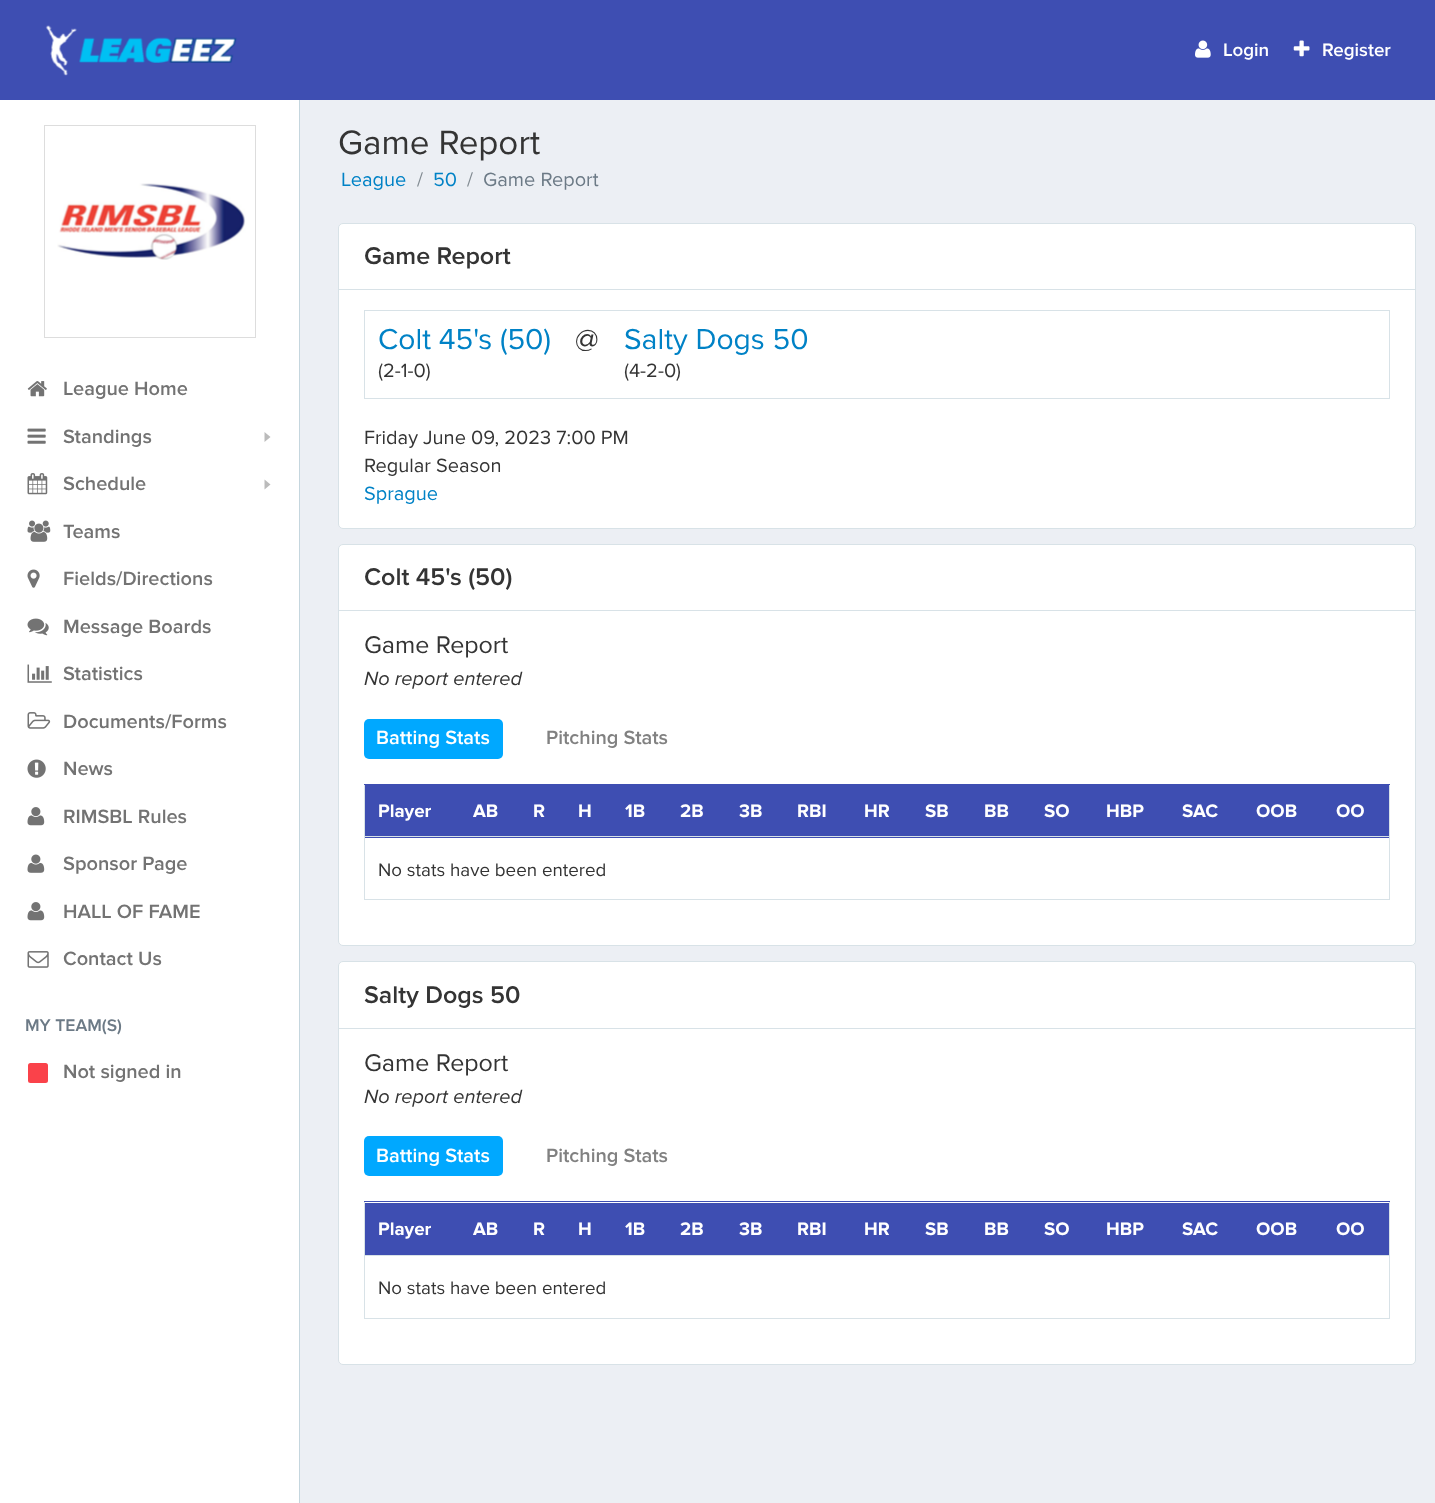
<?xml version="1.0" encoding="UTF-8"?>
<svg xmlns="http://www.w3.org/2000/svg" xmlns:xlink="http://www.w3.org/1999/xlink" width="1435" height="1503">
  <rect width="100%" height="100%" fill="#eceff4" />
  <rect width="1435" height="100" fill="#3e4eb2" />
  <image x="45" y="25" width="192" height="51" xlink:href="image1.png" />
  <image x="1195" y="40" width="16" height="18" xlink:href="image2.png" />
  <image x="1293" y="40" width="17" height="17" xlink:href="image3.png" />
  <rect y="100" width="299" height="1403" fill="#ffffff" />
  <rect x="299" y="100" width="1" height="1403" fill="#c5d6de" />
  <rect x="44.5" y="125.5" width="211" height="212" fill="none" stroke="#dddddd" />
  <image x="57" y="183" width="189" height="77" xlink:href="image4.png" />
  <image x="27" y="381" width="20" height="16" xlink:href="image5.png" />
  <image x="27" y="428" width="19" height="16" xlink:href="image6.png" />
  <path d="M 264.5 442 v -10 l 6 5 z" fill="#bbbbbb" />
  <image x="27" y="473" width="21" height="22" xlink:href="image7.png" />
  <path d="M 264.5 489.5 v -10 l 6 5 z" fill="#bbbbbb" />
  <image x="27" y="520" width="24" height="22" xlink:href="image8.png" />
  <image x="27" y="569" width="13" height="19" xlink:href="image9.png" />
  <image x="27" y="618" width="22" height="18" xlink:href="image10.png" />
  <image x="27" y="664" width="25" height="19" xlink:href="image11.png" />
  <image x="27" y="712" width="24" height="17" xlink:href="image12.png" />
  <image x="27" y="759" width="19" height="19" xlink:href="image13.png" />
  <image x="27" y="807" width="18" height="19" xlink:href="image14.png" />
  <image x="27" y="854" width="18" height="19" xlink:href="image15.png" />
  <image x="27" y="902" width="18" height="19" xlink:href="image14.png" />
  <image x="27" y="951" width="22" height="17" xlink:href="image16.png" />
  <rect x="28" y="1063" width="20" height="20" rx="2.5" fill="#fa424a" />
  <rect x="338.5" y="223.5" width="1077" height="305" rx="4.5" fill="#ffffff" stroke="#d8e2e7" />
  <rect x="339" y="289" width="1076" height="1" fill="#d8e2e7" />
  <rect x="364.5" y="310.5" width="1025" height="88" fill="none" stroke="#d8e2e7" />
  <rect x="338.5" y="544.5" width="1077" height="401" rx="4.5" fill="#ffffff" stroke="#d8e2e7" />
  <rect x="339" y="610" width="1076" height="1" fill="#d8e2e7" />
  <rect x="364" y="719" width="139" height="40" rx="5" fill="#00a8ff" />
  <rect x="1389" y="784" width="1" height="116" fill="#d8e2e7" />
  <rect x="364" y="899" width="1026" height="1" fill="#d8e2e7" />
  <rect x="364" y="784" width="1" height="116" fill="#d8e2e7" />
  <rect x="365" y="785" width="1024" height="53" fill="#3e4eb2" />
  <rect x="364" y="784" width="1026" height="1" fill="#3e4eb2" />
  <rect x="364" y="836" width="1026" height="1" fill="#d8e2e7" />
  <rect x="338.5" y="961.5" width="1077" height="403" rx="4.5" fill="#ffffff" stroke="#d8e2e7" />
  <rect x="339" y="1028" width="1076" height="1" fill="#d8e2e7" />
  <rect x="364" y="1136" width="139" height="40" rx="5" fill="#00a8ff" />
  <rect x="1389" y="1201" width="1" height="118" fill="#d8e2e7" />
  <rect x="364" y="1318" width="1026" height="1" fill="#d8e2e7" />
  <rect x="364" y="1201" width="1" height="118" fill="#d8e2e7" />
  <rect x="365" y="1203" width="1024" height="52" fill="#3e4eb2" />
  <rect x="364" y="1201" width="1026" height="1" fill="#3e4eb2" />
  <rect x="364" y="1255" width="1026" height="1" fill="#d8e2e7" />
  <text x="1223" y="56" style="font-family: Proxima Nova; font-size: 18.75px; font-weight: 600; fill: #ffffff">Login</text>
  <text x="1322" y="56" style="font-family: Proxima Nova; font-size: 18.75px; font-weight: 600; fill: #ffffff">Register</text>
  <text x="63" y="395" style="font-family: Proxima Nova; font-size: 20px; font-weight: 600; fill: #737373">League Home</text>
  <text x="63" y="443" style="font-family: Proxima Nova; font-size: 20px; font-weight: 600; fill: #737373">Standings</text>
  <text x="63" y="490" style="font-family: Proxima Nova; font-size: 20px; font-weight: 600; fill: #737373">Schedule</text>
  <text x="63" y="538" style="font-family: Proxima Nova; font-size: 20px; font-weight: 600; fill: #737373">Teams</text>
  <text x="63" y="585" style="font-family: Proxima Nova; font-size: 20px; font-weight: 600; fill: #737373">Fields/Directions</text>
  <text x="63" y="633" style="font-family: Proxima Nova; font-size: 20px; font-weight: 600; fill: #737373">Message Boards</text>
  <text x="63" y="680" style="font-family: Proxima Nova; font-size: 20px; font-weight: 600; fill: #737373">Statistics</text>
  <text x="63" y="728" style="font-family: Proxima Nova; font-size: 20px; font-weight: 600; fill: #737373">Documents/Forms</text>
  <text x="63" y="775" style="font-family: Proxima Nova; font-size: 20px; font-weight: 600; fill: #737373">News</text>
  <text x="63" y="823" style="font-family: Proxima Nova; font-size: 20px; font-weight: 600; fill: #737373">RIMSBL Rules</text>
  <text x="63" y="870" style="font-family: Proxima Nova; font-size: 20px; font-weight: 600; fill: #737373">Sponsor Page</text>
  <text x="63" y="918" style="font-family: Proxima Nova; font-size: 20px; font-weight: 600; fill: #737373">HALL OF FAME</text>
  <text x="63" y="965" style="font-family: Proxima Nova; font-size: 20px; font-weight: 600; fill: #737373">Contact Us</text>
  <text x="25" y="1031" style="font-family: Proxima Nova; font-size: 17.5px; font-weight: 600; fill: #6c7a86">MY TEAM(S)</text>
  <text x="63" y="1078" style="font-family: Proxima Nova; font-size: 20px; font-weight: 600; fill: #737373">Not signed in</text>
  <text x="338" y="154" style="font-family: Proxima Nova; font-size: 35px; fill: #343434">Game Report</text>
  <text x="341" y="186" style="font-family: Proxima Nova; font-size: 20px; fill: #0082c6">League</text>
  <text x="417" y="186" style="font-family: Proxima Nova; font-size: 20px; fill: #818a91">/</text>
  <text x="433" y="186" style="font-family: Proxima Nova; font-size: 20px; fill: #0082c6">50</text>
  <text x="467" y="186" style="font-family: Proxima Nova; font-size: 20px; fill: #818a91">/</text>
  <text x="483" y="186" style="font-family: Proxima Nova; font-size: 20px; fill: #6c7a86">Game Report</text>
  <text x="364" y="264" style="font-family: Proxima Nova; font-size: 25px; font-weight: 600; fill: #343434">Game Report</text>
  <text x="378" y="349" style="font-family: Proxima Nova; font-size: 30px; fill: #0082c6">Colt 45's (50)</text>
  <text x="378" y="377" style="font-family: Proxima Nova; font-size: 20px; fill: #343434">(2-1-0)</text>
  <text x="575" y="349" style="font-family: Proxima Nova; font-size: 30px; fill: #343434">@</text>
  <text x="624" y="349" style="font-family: Proxima Nova; font-size: 30px; fill: #0082c6">Salty Dogs 50</text>
  <text x="624" y="377" style="font-family: Proxima Nova; font-size: 20px; fill: #343434">(4-2-0)</text>
  <text x="364" y="444" style="font-family: Proxima Nova; font-size: 20px; fill: #343434">Friday June 09, 2023 7:00 PM</text>
  <text x="364" y="472" style="font-family: Proxima Nova; font-size: 20px; fill: #343434">Regular Season</text>
  <text x="364" y="500" style="font-family: Proxima Nova; font-size: 20px; fill: #0082c6">Sprague</text>
  <text x="364" y="585" style="font-family: Proxima Nova; font-size: 25px; font-weight: 600; fill: #343434">Colt 45's (50)</text>
  <text x="364" y="653" style="font-family: Proxima Nova; font-size: 25px; fill: #343434">Game Report</text>
  <text x="364" y="685" style="font-family: Proxima Nova; font-size: 20px; font-style: italic; fill: #343434">No report entered</text>
  <text x="376" y="744" style="font-family: Proxima Nova; font-size: 20px; font-weight: 600; fill: #ffffff">Batting Stats</text>
  <text x="546" y="744" style="font-family: Proxima Nova; font-size: 20px; font-weight: 600; fill: #818181">Pitching Stats</text>
  <text x="378" y="817" style="font-family: Proxima Nova; font-size: 18.75px; font-weight: bold; fill: #ffffff">Player</text>
  <text x="473" y="817" style="font-family: Proxima Nova; font-size: 18.75px; font-weight: bold; fill: #ffffff">AB</text>
  <text x="533" y="817" style="font-family: Proxima Nova; font-size: 18.75px; font-weight: bold; fill: #ffffff">R</text>
  <text x="578" y="817" style="font-family: Proxima Nova; font-size: 18.75px; font-weight: bold; fill: #ffffff">H</text>
  <text x="625" y="817" style="font-family: Proxima Nova; font-size: 18.75px; font-weight: bold; fill: #ffffff">1B</text>
  <text x="680" y="817" style="font-family: Proxima Nova; font-size: 18.75px; font-weight: bold; fill: #ffffff">2B</text>
  <text x="739" y="817" style="font-family: Proxima Nova; font-size: 18.75px; font-weight: bold; fill: #ffffff">3B</text>
  <text x="797" y="817" style="font-family: Proxima Nova; font-size: 18.75px; font-weight: bold; fill: #ffffff">RBI</text>
  <text x="864" y="817" style="font-family: Proxima Nova; font-size: 18.75px; font-weight: bold; fill: #ffffff">HR</text>
  <text x="925" y="817" style="font-family: Proxima Nova; font-size: 18.75px; font-weight: bold; fill: #ffffff">SB</text>
  <text x="984" y="817" style="font-family: Proxima Nova; font-size: 18.75px; font-weight: bold; fill: #ffffff">BB</text>
  <text x="1044" y="817" style="font-family: Proxima Nova; font-size: 18.75px; font-weight: bold; fill: #ffffff">SO</text>
  <text x="1106" y="817" style="font-family: Proxima Nova; font-size: 18.75px; font-weight: bold; fill: #ffffff">HBP</text>
  <text x="1182" y="817" style="font-family: Proxima Nova; font-size: 18.75px; font-weight: bold; fill: #ffffff">SAC</text>
  <text x="1256" y="817" style="font-family: Proxima Nova; font-size: 18.75px; font-weight: bold; fill: #ffffff">OOB</text>
  <text x="1336" y="817" style="font-family: Proxima Nova; font-size: 18.75px; font-weight: bold; fill: #ffffff">OO</text>
  <text x="378" y="876" style="font-family: Proxima Nova; font-size: 18.75px; fill: #343434">No stats have been entered</text>
  <text x="364" y="1003" style="font-family: Proxima Nova; font-size: 25px; font-weight: 600; fill: #343434">Salty Dogs 50</text>
  <text x="364" y="1071" style="font-family: Proxima Nova; font-size: 25px; fill: #343434">Game Report</text>
  <text x="364" y="1103" style="font-family: Proxima Nova; font-size: 20px; font-style: italic; fill: #343434">No report entered</text>
  <text x="376" y="1162" style="font-family: Proxima Nova; font-size: 20px; font-weight: 600; fill: #ffffff">Batting Stats</text>
  <text x="546" y="1162" style="font-family: Proxima Nova; font-size: 20px; font-weight: 600; fill: #818181">Pitching Stats</text>
  <text x="378" y="1235" style="font-family: Proxima Nova; font-size: 18.75px; font-weight: bold; fill: #ffffff">Player</text>
  <text x="473" y="1235" style="font-family: Proxima Nova; font-size: 18.75px; font-weight: bold; fill: #ffffff">AB</text>
  <text x="533" y="1235" style="font-family: Proxima Nova; font-size: 18.75px; font-weight: bold; fill: #ffffff">R</text>
  <text x="578" y="1235" style="font-family: Proxima Nova; font-size: 18.75px; font-weight: bold; fill: #ffffff">H</text>
  <text x="625" y="1235" style="font-family: Proxima Nova; font-size: 18.75px; font-weight: bold; fill: #ffffff">1B</text>
  <text x="680" y="1235" style="font-family: Proxima Nova; font-size: 18.75px; font-weight: bold; fill: #ffffff">2B</text>
  <text x="739" y="1235" style="font-family: Proxima Nova; font-size: 18.75px; font-weight: bold; fill: #ffffff">3B</text>
  <text x="797" y="1235" style="font-family: Proxima Nova; font-size: 18.75px; font-weight: bold; fill: #ffffff">RBI</text>
  <text x="864" y="1235" style="font-family: Proxima Nova; font-size: 18.75px; font-weight: bold; fill: #ffffff">HR</text>
  <text x="925" y="1235" style="font-family: Proxima Nova; font-size: 18.75px; font-weight: bold; fill: #ffffff">SB</text>
  <text x="984" y="1235" style="font-family: Proxima Nova; font-size: 18.75px; font-weight: bold; fill: #ffffff">BB</text>
  <text x="1044" y="1235" style="font-family: Proxima Nova; font-size: 18.75px; font-weight: bold; fill: #ffffff">SO</text>
  <text x="1106" y="1235" style="font-family: Proxima Nova; font-size: 18.75px; font-weight: bold; fill: #ffffff">HBP</text>
  <text x="1182" y="1235" style="font-family: Proxima Nova; font-size: 18.75px; font-weight: bold; fill: #ffffff">SAC</text>
  <text x="1256" y="1235" style="font-family: Proxima Nova; font-size: 18.75px; font-weight: bold; fill: #ffffff">OOB</text>
  <text x="1336" y="1235" style="font-family: Proxima Nova; font-size: 18.75px; font-weight: bold; fill: #ffffff">OO</text>
  <text x="378" y="1294" style="font-family: Proxima Nova; font-size: 18.75px; fill: #343434">No stats have been entered</text>
</svg>
